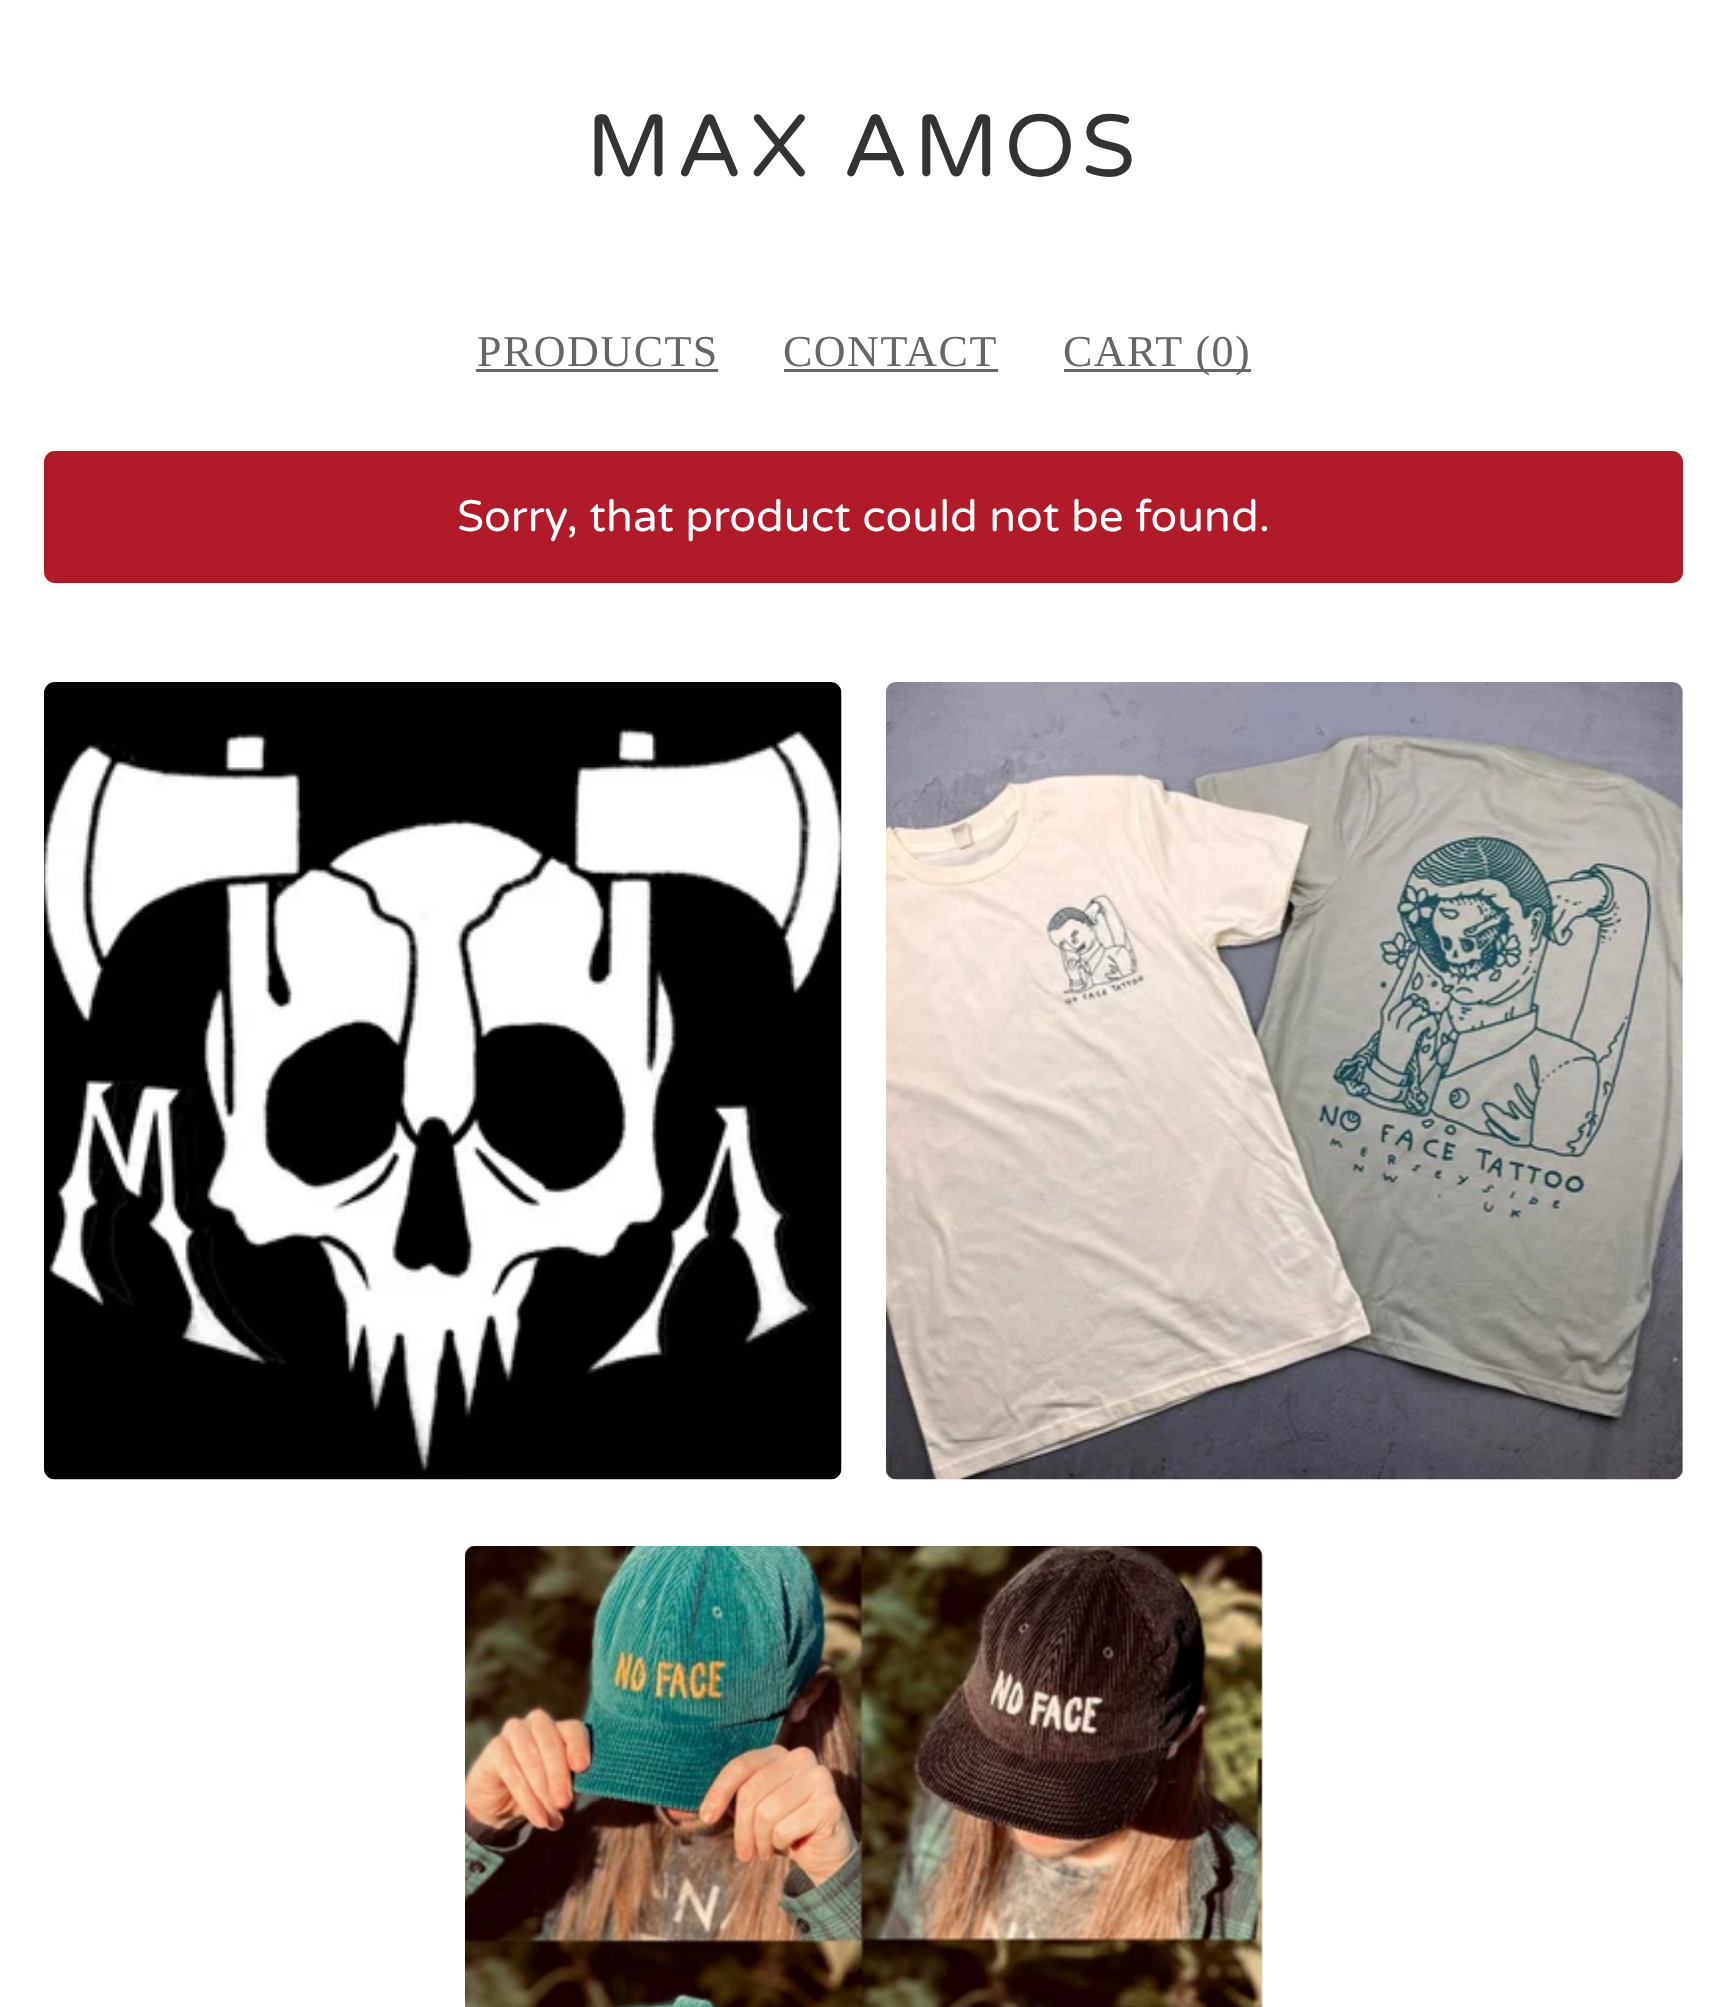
<?xml version="1.0" encoding="UTF-8"?>
<svg xmlns="http://www.w3.org/2000/svg" xmlns:xlink="http://www.w3.org/1999/xlink" width="1726" height="2007">
  <rect width="100%" height="100%" fill="#ffffff" />
  <rect x="476" y="369" width="242" height="3" fill="#666666" />
  <rect x="784" y="369" width="214" height="3" fill="#666666" />
  <rect x="1064" y="369" width="187" height="3" fill="#666666" />
  <rect x="44" y="451" width="1639" height="132" rx="11" fill="#b11a2a" />
  <image x="44" y="682" width="798" height="798" xlink:href="image1.png" />
  <image x="886" y="682" width="797" height="798" xlink:href="image2.png" />
  <image x="465" y="1546" width="798" height="461" xlink:href="image3.png" />
  <text x="586" y="176" style="font-family: Varela Round; font-size: 88px; letter-spacing: 5.5px; fill: #333333">MAX AMOS</text>
  <text x="477" y="366" style="font-family: Liberation Serif; font-size: 44px; letter-spacing: 1.5px; fill: #666666">PRODUCTS</text>
  <text x="783" y="366" style="font-family: Liberation Serif; font-size: 44px; letter-spacing: 1.5px; fill: #666666">CONTACT</text>
  <text x="1063" y="366" style="font-family: Liberation Serif; font-size: 44px; letter-spacing: 1.5px; fill: #666666">CART (0)</text>
  <text x="457" y="531" style="font-family: Varela Round; font-size: 44px; fill: #ffffff">Sorry, that product could not be found.</text>
</svg>
